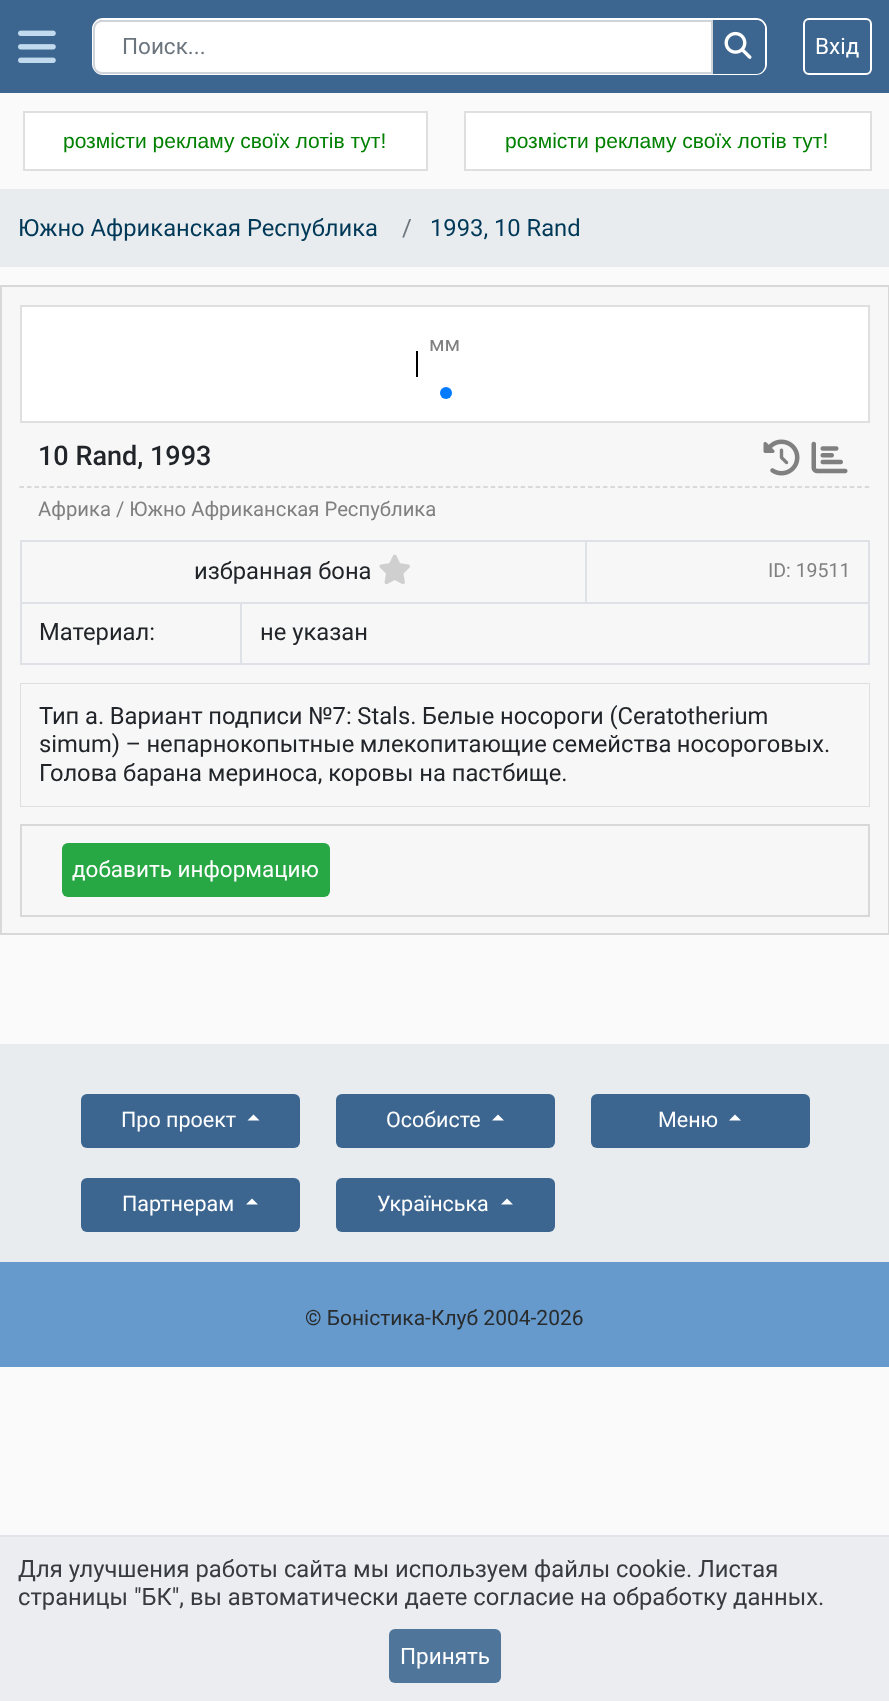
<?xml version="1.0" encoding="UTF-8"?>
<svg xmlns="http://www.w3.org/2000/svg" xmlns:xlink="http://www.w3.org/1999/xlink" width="889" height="1701">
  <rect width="100%" height="100%" fill="#fafafa" />
  <rect width="889" height="93" fill="#3c6690" />
  <image x="18" y="30" width="38" height="33" xlink:href="image1.png" />
  <rect x="93" y="19" width="673" height="55" rx="10" fill="none" stroke="#ffffff" stroke-width="2" />
  <path d="M 711 20 h 45 c 5 0 9 4 9 9 v 36 c 0 5 -4 9 -9 9 h -45 z" fill="#3c6690" />
  <path d="M 102 21 h 610 v 52 h -610 c -4.5 0 -8 -3.5 -8 -8 v -36 c 0 -4.5 3.5 -8 8 -8 z" fill="#ffffff" stroke="#ced4da" stroke-width="2" />
  <image x="724" y="31" width="28" height="28" xlink:href="image2.png" />
  <rect x="804" y="19" width="67" height="55" rx="5" fill="none" stroke="#ffffff" stroke-width="2" />
  <rect x="24" y="112" width="403" height="58" fill="#ffffff" stroke="#dfdfdf" stroke-width="2" />
  <rect x="465" y="112" width="406" height="58" fill="#ffffff" stroke="#dfdfdf" stroke-width="2" />
  <rect y="189" width="889" height="78" fill="#e9ecef" />
  <rect x="1" y="286" width="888" height="648" fill="#f7f7f7" stroke="#d8d8d8" stroke-width="2" />
  <rect x="21" y="306" width="848" height="116" fill="#ffffff" stroke="#dfdfdf" stroke-width="2" />
  <rect x="416" y="351" width="2" height="26" fill="#000000" />
  <circle cx="446" cy="393" r="6" fill="#007aff" />
  <path d="M 19.5 487 h 850.5" fill="none" stroke="#cfcfcf" stroke-width="1.5" stroke-dasharray="4.5 2.98" />
  <image x="763" y="439" width="37" height="37" xlink:href="image3.png" />
  <image x="811" y="441" width="37" height="33" xlink:href="image4.png" />
  <rect x="21" y="541" width="848" height="123" fill="none" stroke="#dee2e6" stroke-width="2" />
  <rect x="21" y="602" width="848" height="2" fill="#dee2e6" />
  <rect x="585" y="542" width="2" height="60" fill="#dee2e6" />
  <image x="379" y="554" width="31" height="31" xlink:href="image5.png" />
  <rect x="240" y="603" width="2" height="60" fill="#dee2e6" />
  <rect x="21" y="684" width="848" height="122" fill="none" stroke="#dfdfdf" stroke-width="2" />
  <rect x="21" y="684" width="848" height="122" fill="#f7f7f7" />
  <rect x="21" y="825" width="848" height="91" fill="none" stroke="#d8d8d8" stroke-width="2" />
  <rect x="62" y="843" width="268" height="54" rx="6" fill="#28a745" />
  <rect y="1044" width="889" height="218" fill="#e9ecef" />
  <rect x="81" y="1094" width="219" height="54" rx="6" fill="#3c6690" />
  <path d="M 259.5 1120.5 h -12 l 6 -6 z" fill="#ffffff" />
  <rect x="336" y="1094" width="219" height="54" rx="6" fill="#3c6690" />
  <path d="M 504 1120.5 h -12 l 6 -6 z" fill="#ffffff" />
  <rect x="591" y="1094" width="219" height="54" rx="6" fill="#3c6690" />
  <path d="M 741 1120.5 h -12 l 6 -6 z" fill="#ffffff" />
  <rect x="81" y="1178" width="219" height="54" rx="6" fill="#3c6690" />
  <path d="M 258 1204.5 h -12 l 6 -6 z" fill="#ffffff" />
  <rect x="336" y="1178" width="219" height="54" rx="6" fill="#3c6690" />
  <path d="M 513 1204.5 h -12 l 6 -6 z" fill="#ffffff" />
  <rect y="1262" width="889" height="105" fill="#6699cc" />
  <rect y="1537" width="889" height="164" fill="#ebedf0" />
  <rect y="1535" width="889" height="2" fill="#e1e4e8" />
  <rect x="389" y="1629" width="112" height="54" rx="6" fill="#4f759b" />
  <text x="122" y="54" style="font-family: Roboto; font-size: 22.5px; fill: #6c757d">Поиск...</text>
  <text x="815" y="54" style="font-family: Roboto; font-size: 22.5px; fill: #ffffff">Вхід</text>
  <text x="63" y="148" style="font-family: Liberation Sans; font-size: 21px; fill: #008000">розмісти рекламу своїх лотів тут!</text>
  <text x="505" y="148" style="font-family: Liberation Sans; font-size: 21px; fill: #008000">розмісти рекламу своїх лотів тут!</text>
  <text x="18" y="236" style="font-family: Roboto; font-size: 23.75px; fill: #003958">Южно Африканская Республика</text>
  <text x="402" y="236" style="font-family: Roboto; font-size: 23.75px; fill: #6c757d">/</text>
  <text x="430" y="236" style="font-family: Roboto; font-size: 23.75px; fill: #003958">1993, 10 Rand</text>
  <text x="429" y="351" style="font-family: Roboto; font-size: 21px; fill: #808080">мм</text>
  <text x="38" y="465" style="font-family: Roboto; font-size: 27px; font-weight: 500; fill: #212529">10 Rand, 1993</text>
  <text x="38" y="516" style="font-family: Roboto; font-size: 20.25px; fill: #808080">Африка / Южно Африканская Республика</text>
  <text x="194" y="579" style="font-family: Roboto; font-size: 23.75px; fill: #212529">избранная бона</text>
  <text x="768" y="577" style="font-family: Roboto; font-size: 19.5px; fill: #808080">ID: 19511</text>
  <text x="39" y="640" style="font-family: Roboto; font-size: 23.75px; fill: #212529">Материал:</text>
  <text x="260" y="640" style="font-family: Roboto; font-size: 23.75px; fill: #212529">не указан</text>
  <text x="39" y="724" word-spacing="-0.25" style="font-family: Roboto; font-size: 23.75px; fill: #212529">Тип а. Вариант подписи №7: Stals. Белые носороги (Ceratotherium</text>
  <text x="39" y="752" word-spacing="-0.5" style="font-family: Roboto; font-size: 23.75px; fill: #212529">simum) – непарнокопытные млекопитающие семейства носороговых.</text>
  <text x="39" y="781" style="font-family: Roboto; font-size: 23.75px; fill: #212529">Голова барана мериноса, коровы на пастбище.</text>
  <text x="72" y="877" style="font-family: Roboto; font-size: 22.5px; fill: #ffffff">добавить информацию</text>
  <text x="121" y="1127" style="font-family: Roboto; font-size: 21.5px; fill: #ffffff">Про проект</text>
  <text x="386" y="1127" style="font-family: Roboto; font-size: 21.5px; fill: #ffffff">Особисте</text>
  <text x="658" y="1127" style="font-family: Roboto; font-size: 21.5px; fill: #ffffff">Меню</text>
  <text x="122" y="1211" style="font-family: Roboto; font-size: 21.5px; fill: #ffffff">Партнерам</text>
  <text x="377" y="1211" style="font-family: Roboto; font-size: 21.5px; fill: #ffffff">Українська</text>
  <text x="305" y="1325" style="font-family: Roboto; font-size: 21px; fill: #282c2d">© Боністика-Клуб 2004-2026</text>
  <text x="18" y="1577" style="font-family: Roboto; font-size: 23.75px; fill: #373a3e">Для улучшения работы сайта мы используем файлы cookie. Листая</text>
  <text x="18" y="1605" style="font-family: Roboto; font-size: 23.75px; fill: #373a3e">страницы "БК", вы автоматически даете согласие на обработку данных.</text>
  <text x="400" y="1664" style="font-family: Roboto; font-size: 22.5px; fill: #ffffff">Принять</text>
</svg>
